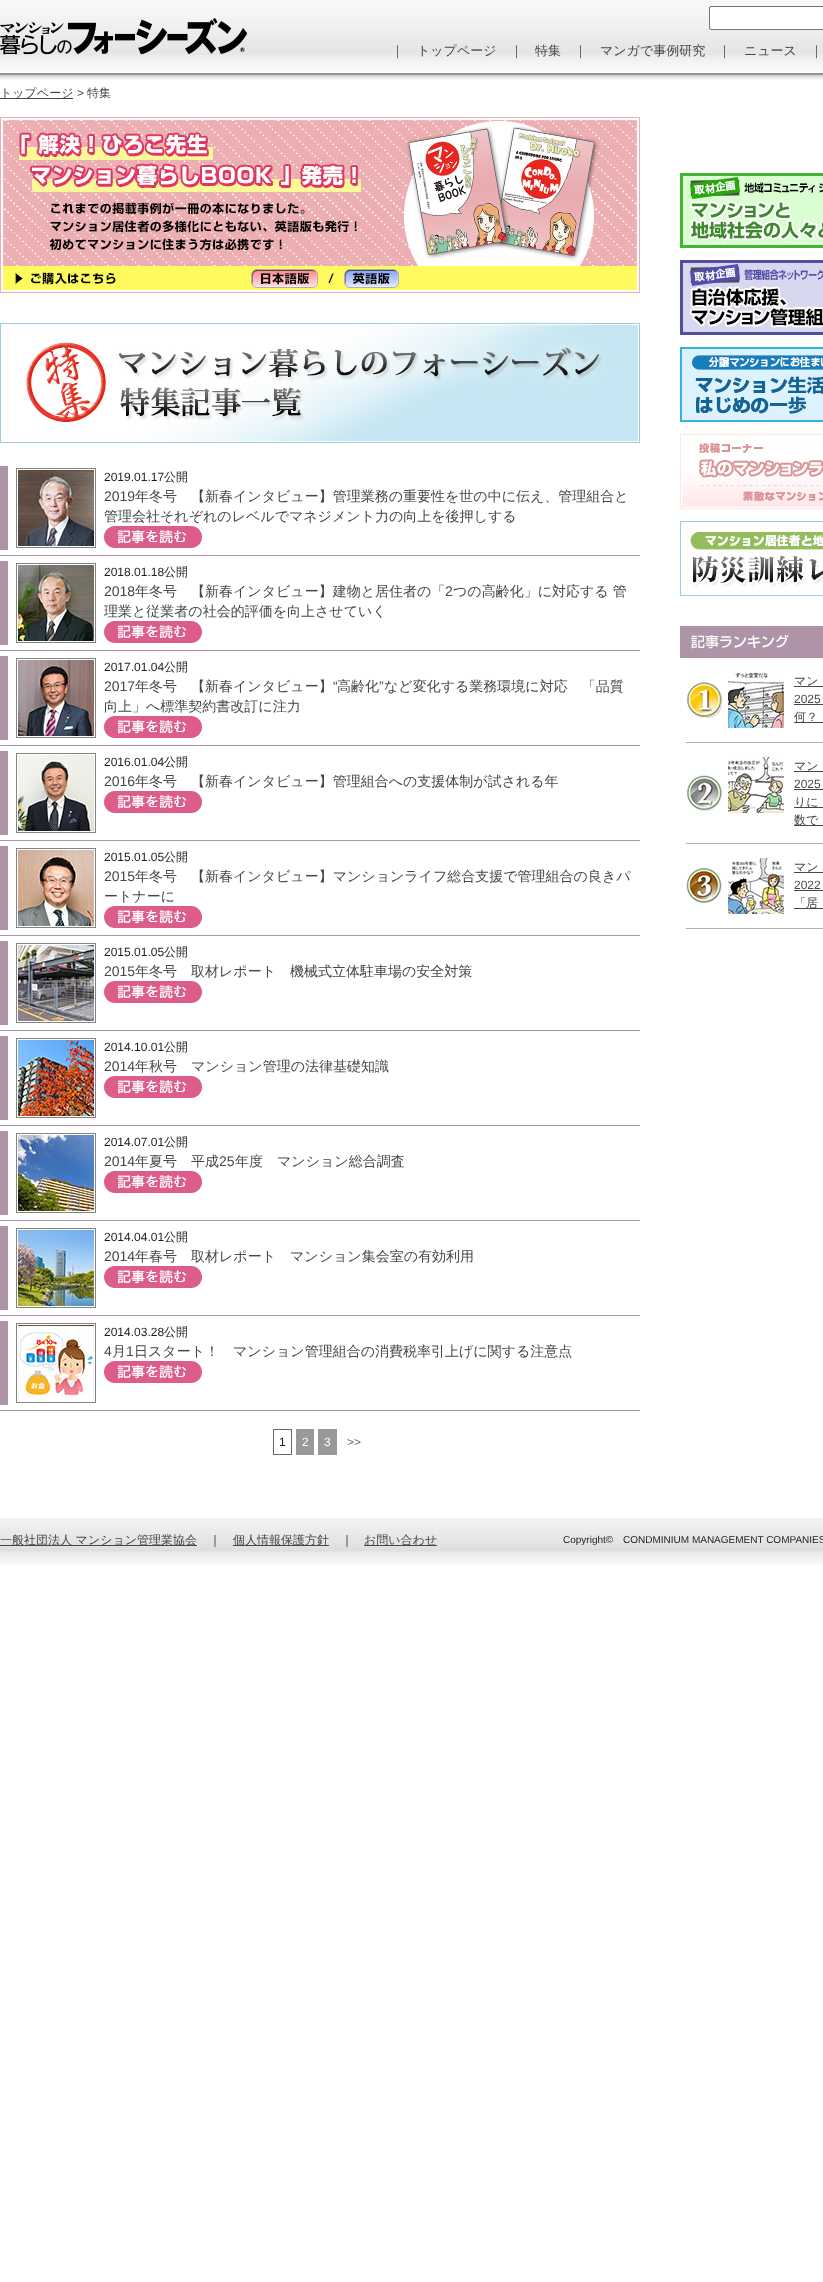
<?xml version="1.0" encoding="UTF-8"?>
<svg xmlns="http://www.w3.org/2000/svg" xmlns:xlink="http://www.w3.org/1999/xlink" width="823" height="2282">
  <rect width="100%" height="100%" fill="#ffffff" />
  <image x="0" y="0" width="823" height="80" xlink:href="image1.png" />
  <image x="0" y="18" width="247" height="37" xlink:href="image2.png" />
  <rect x="709.5" y="6.5" width="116" height="23" rx="1.5" fill="#ffffff" stroke="#767676" />
  <rect y="98" width="73" height="1" fill="#474747" />
  <image x="0" y="117" width="640" height="176" xlink:href="image3.png" />
  <image x="0" y="323" width="640" height="120" xlink:href="image4.png" />
  <rect y="555" width="640" height="1" fill="#ae93a9" />
  <rect y="466" width="8" height="84" fill="#ae93a9" />
  <rect x="16.5" y="468.5" width="79" height="79" fill="none" stroke="#848383" />
  <image x="18" y="470" width="76" height="76" xlink:href="image5.png" />
  <image x="104" y="526" width="98" height="22" xlink:href="image6.png" />
  <rect y="650" width="640" height="1" fill="#ae93a9" />
  <rect y="561" width="8" height="84" fill="#ae93a9" />
  <rect x="16.5" y="563.5" width="79" height="79" fill="none" stroke="#848383" />
  <image x="18" y="565" width="76" height="76" xlink:href="image7.png" />
  <image x="104" y="621" width="98" height="22" xlink:href="image6.png" />
  <rect y="745" width="640" height="1" fill="#ae93a9" />
  <rect y="656" width="8" height="84" fill="#ae93a9" />
  <rect x="16.5" y="658.5" width="79" height="79" fill="none" stroke="#848383" />
  <image x="18" y="660" width="76" height="76" xlink:href="image8.png" />
  <image x="104" y="716" width="98" height="22" xlink:href="image6.png" />
  <rect y="840" width="640" height="1" fill="#ae93a9" />
  <rect y="751" width="8" height="84" fill="#ae93a9" />
  <rect x="16.5" y="753.5" width="79" height="79" fill="none" stroke="#848383" />
  <image x="18" y="755" width="76" height="76" xlink:href="image9.png" />
  <image x="104" y="791" width="98" height="22" xlink:href="image6.png" />
  <rect y="935" width="640" height="1" fill="#ae93a9" />
  <rect y="846" width="8" height="84" fill="#ae93a9" />
  <rect x="16.5" y="848.5" width="79" height="79" fill="none" stroke="#848383" />
  <image x="18" y="850" width="76" height="76" xlink:href="image10.png" />
  <image x="104" y="906" width="98" height="22" xlink:href="image6.png" />
  <rect y="1030" width="640" height="1" fill="#ae93a9" />
  <rect y="941" width="8" height="84" fill="#ae93a9" />
  <rect x="16.5" y="943.5" width="79" height="79" fill="none" stroke="#848383" />
  <image x="18" y="945" width="76" height="76" xlink:href="image11.png" />
  <image x="104" y="981" width="98" height="22" xlink:href="image6.png" />
  <rect y="1125" width="640" height="1" fill="#ae93a9" />
  <rect y="1036" width="8" height="84" fill="#ae93a9" />
  <rect x="16.5" y="1038.5" width="79" height="79" fill="none" stroke="#848383" />
  <image x="18" y="1040" width="76" height="76" xlink:href="image12.png" />
  <image x="104" y="1076" width="98" height="22" xlink:href="image6.png" />
  <rect y="1220" width="640" height="1" fill="#ae93a9" />
  <rect y="1131" width="8" height="84" fill="#ae93a9" />
  <rect x="16.5" y="1133.5" width="79" height="79" fill="none" stroke="#848383" />
  <image x="18" y="1135" width="76" height="76" xlink:href="image13.png" />
  <image x="104" y="1171" width="98" height="22" xlink:href="image6.png" />
  <rect y="1315" width="640" height="1" fill="#ae93a9" />
  <rect y="1226" width="8" height="84" fill="#ae93a9" />
  <rect x="16.5" y="1228.5" width="79" height="79" fill="none" stroke="#848383" />
  <image x="18" y="1230" width="76" height="76" xlink:href="image14.png" />
  <image x="104" y="1266" width="98" height="22" xlink:href="image6.png" />
  <rect y="1410" width="640" height="1" fill="#ae93a9" />
  <rect y="1321" width="8" height="84" fill="#ae93a9" />
  <rect x="16.5" y="1323.5" width="79" height="79" fill="none" stroke="#848383" />
  <image x="18" y="1325" width="76" height="75" xlink:href="image15.png" />
  <image x="104" y="1361" width="98" height="22" xlink:href="image6.png" />
  <rect x="273.5" y="1429.5" width="18" height="25" fill="none" stroke="#666666" />
  <rect x="296" y="1429" width="18" height="26" fill="#999999" />
  <rect x="318" y="1429" width="19" height="26" fill="#999999" />
  <image x="680" y="173" width="143" height="75" xlink:href="image16.png" />
  <image x="680" y="260" width="143" height="75" xlink:href="image17.png" />
  <image x="680" y="347" width="143" height="75" xlink:href="image18.png" />
  <image x="680" y="434" width="143" height="75" xlink:href="image19.png" />
  <image x="680" y="521" width="143" height="75" xlink:href="image20.png" />
  <image x="680" y="626" width="143" height="32" xlink:href="image21.png" />
  <image x="686" y="682" width="36" height="36" xlink:href="image22.png" />
  <rect x="686" y="742" width="137" height="1" fill="#b1b1b1" />
  <image x="728" y="672" width="56" height="56" xlink:href="image23.png" />
  <rect x="794" y="686" width="29" height="1" fill="#474747" />
  <rect x="794" y="704" width="29" height="1" fill="#474747" />
  <rect x="794" y="722" width="29" height="1" fill="#474747" />
  <image x="686" y="775" width="36" height="37" xlink:href="image24.png" />
  <rect x="686" y="843" width="137" height="1" fill="#b1b1b1" />
  <image x="728" y="757" width="56" height="56" xlink:href="image25.png" />
  <rect x="794" y="771" width="29" height="1" fill="#474747" />
  <rect x="794" y="789" width="29" height="1" fill="#474747" />
  <rect x="794" y="807" width="29" height="1" fill="#474747" />
  <rect x="794" y="825" width="29" height="1" fill="#474747" />
  <image x="686" y="868" width="36" height="36" xlink:href="image26.png" />
  <rect x="686" y="928" width="137" height="1" fill="#b1b1b1" />
  <image x="728" y="858" width="56" height="56" xlink:href="image27.png" />
  <rect x="794" y="872" width="29" height="1" fill="#474747" />
  <rect x="794" y="890" width="29" height="1" fill="#474747" />
  <rect x="794" y="908" width="29" height="1" fill="#474747" />
  <image x="0" y="1518" width="823" height="47" xlink:href="image28.png" />
  <rect y="1545" width="197" height="1" fill="#474747" />
  <rect x="233" y="1545" width="96" height="1" fill="#474747" />
  <rect x="364" y="1545" width="73" height="1" fill="#474747" />
  <text x="391" y="55" style="font-family: WenQuanYi Zen Hei; font-size: 13px; font-weight: 500; fill: #474747">｜</text>
  <text x="417" y="55" style="font-family: WenQuanYi Zen Hei; font-size: 13px; font-weight: 500; fill: #474747">トップページ</text>
  <text x="510" y="55" style="font-family: WenQuanYi Zen Hei; font-size: 13px; font-weight: 500; fill: #474747">｜</text>
  <text x="535" y="55" style="font-family: WenQuanYi Zen Hei; font-size: 13px; font-weight: 500; fill: #474747">特集</text>
  <text x="574" y="55" style="font-family: WenQuanYi Zen Hei; font-size: 13px; font-weight: 500; fill: #474747">｜</text>
  <text x="600" y="55" style="font-family: WenQuanYi Zen Hei; font-size: 13px; font-weight: 500; fill: #474747">マンガで事例研究</text>
  <text x="718" y="55" style="font-family: WenQuanYi Zen Hei; font-size: 13px; font-weight: 500; fill: #474747">｜</text>
  <text x="744" y="55" style="font-family: WenQuanYi Zen Hei; font-size: 13px; font-weight: 500; fill: #474747">ニュース</text>
  <text x="810" y="55" style="font-family: WenQuanYi Zen Hei; font-size: 13px; font-weight: 500; fill: #474747">｜</text>
  <text x="0" y="97" style="font-family: WenQuanYi Zen Hei; font-size: 12px; font-weight: 500; fill: #474747">トップページ</text>
  <text x="77" y="97" style="font-family: Liberation Sans; font-size: 12px; fill: #474747">&gt;</text>
  <text x="87" y="97" style="font-family: WenQuanYi Zen Hei; font-size: 12px; font-weight: 500; fill: #474747">特集</text>
  <text x="104" y="481" style="font-family: Liberation Sans; font-size: 12px; fill: #1d1d1d">2019.01.17</text>
  <text x="164" y="481" style="font-family: WenQuanYi Zen Hei; font-size: 12px; font-weight: 500; fill: #1d1d1d">公開</text>
  <text x="104" y="501" style="font-family: Liberation Sans; font-size: 14px; fill: #474747">2019</text>
  <text x="135" y="501" style="font-family: WenQuanYi Zen Hei; font-size: 14px; font-weight: 500; fill: #474747">年冬号　【新春インタビュー】管理業務の重要性を世の中に伝え、管理組合と</text>
  <text x="104" y="521" style="font-family: WenQuanYi Zen Hei; font-size: 14px; font-weight: 500; fill: #474747">管理会社それぞれのレベルでマネジメント力の向上を後押しする</text>
  <text x="104" y="576" style="font-family: Liberation Sans; font-size: 12px; fill: #1d1d1d">2018.01.18</text>
  <text x="164" y="576" style="font-family: WenQuanYi Zen Hei; font-size: 12px; font-weight: 500; fill: #1d1d1d">公開</text>
  <text x="104" y="596" style="font-family: Liberation Sans; font-size: 14px; fill: #474747">2018</text>
  <text x="135" y="596" style="font-family: WenQuanYi Zen Hei; font-size: 14px; font-weight: 500; fill: #474747">年冬号　【新春インタビュー】建物と居住者の「</text>
  <text x="445" y="596" style="font-family: Liberation Sans; font-size: 14px; fill: #474747">2</text>
  <text x="453" y="596" style="font-family: WenQuanYi Zen Hei; font-size: 14px; font-weight: 500; fill: #474747">つの高齢化」に対応する 管</text>
  <text x="104" y="616" style="font-family: WenQuanYi Zen Hei; font-size: 14px; font-weight: 500; fill: #474747">理業と従業者の社会的評価を向上させていく</text>
  <text x="104" y="671" style="font-family: Liberation Sans; font-size: 12px; fill: #1d1d1d">2017.01.04</text>
  <text x="164" y="671" style="font-family: WenQuanYi Zen Hei; font-size: 12px; font-weight: 500; fill: #1d1d1d">公開</text>
  <text x="104" y="691" style="font-family: Liberation Sans; font-size: 14px; fill: #474747">2017</text>
  <text x="135" y="691" style="font-family: WenQuanYi Zen Hei; font-size: 14px; font-weight: 500; fill: #474747">年冬号　【新春インタビュー】</text>
  <text x="333" y="691" style="font-family: Liberation Sans; font-size: 14px; fill: #474747">“</text>
  <text x="337" y="691" style="font-family: WenQuanYi Zen Hei; font-size: 14px; font-weight: 500; fill: #474747">高齢化</text>
  <text x="379" y="691" style="font-family: Liberation Sans; font-size: 14px; fill: #474747">”</text>
  <text x="384" y="691" style="font-family: WenQuanYi Zen Hei; font-size: 14px; font-weight: 500; fill: #474747">など変化する業務環境に対応　「品質</text>
  <text x="104" y="711" style="font-family: WenQuanYi Zen Hei; font-size: 14px; font-weight: 500; fill: #474747">向上」へ標準契約書改訂に注力</text>
  <text x="104" y="766" style="font-family: Liberation Sans; font-size: 12px; fill: #1d1d1d">2016.01.04</text>
  <text x="164" y="766" style="font-family: WenQuanYi Zen Hei; font-size: 12px; font-weight: 500; fill: #1d1d1d">公開</text>
  <text x="104" y="786" style="font-family: Liberation Sans; font-size: 14px; fill: #474747">2016</text>
  <text x="135" y="786" style="font-family: WenQuanYi Zen Hei; font-size: 14px; font-weight: 500; fill: #474747">年冬号　【新春インタビュー】管理組合への支援体制が試される年</text>
  <text x="104" y="861" style="font-family: Liberation Sans; font-size: 12px; fill: #1d1d1d">2015.01.05</text>
  <text x="164" y="861" style="font-family: WenQuanYi Zen Hei; font-size: 12px; font-weight: 500; fill: #1d1d1d">公開</text>
  <text x="104" y="881" style="font-family: Liberation Sans; font-size: 14px; fill: #474747">2015</text>
  <text x="135" y="881" style="font-family: WenQuanYi Zen Hei; font-size: 14px; font-weight: 500; fill: #474747">年冬号　【新春インタビュー】マンションライフ総合支援で管理組合の良きパ</text>
  <text x="104" y="901" style="font-family: WenQuanYi Zen Hei; font-size: 14px; font-weight: 500; fill: #474747">ートナーに</text>
  <text x="104" y="956" style="font-family: Liberation Sans; font-size: 12px; fill: #1d1d1d">2015.01.05</text>
  <text x="164" y="956" style="font-family: WenQuanYi Zen Hei; font-size: 12px; font-weight: 500; fill: #1d1d1d">公開</text>
  <text x="104" y="976" style="font-family: Liberation Sans; font-size: 14px; fill: #474747">2015</text>
  <text x="135" y="976" style="font-family: WenQuanYi Zen Hei; font-size: 14px; font-weight: 500; fill: #474747">年冬号　取材レポート　機械式立体駐車場の安全対策</text>
  <text x="104" y="1051" style="font-family: Liberation Sans; font-size: 12px; fill: #1d1d1d">2014.10.01</text>
  <text x="164" y="1051" style="font-family: WenQuanYi Zen Hei; font-size: 12px; font-weight: 500; fill: #1d1d1d">公開</text>
  <text x="104" y="1071" style="font-family: Liberation Sans; font-size: 14px; fill: #474747">2014</text>
  <text x="135" y="1071" style="font-family: WenQuanYi Zen Hei; font-size: 14px; font-weight: 500; fill: #474747">年秋号　マンション管理の法律基礎知識</text>
  <text x="104" y="1146" style="font-family: Liberation Sans; font-size: 12px; fill: #1d1d1d">2014.07.01</text>
  <text x="164" y="1146" style="font-family: WenQuanYi Zen Hei; font-size: 12px; font-weight: 500; fill: #1d1d1d">公開</text>
  <text x="104" y="1166" style="font-family: Liberation Sans; font-size: 14px; fill: #474747">2014</text>
  <text x="135" y="1166" style="font-family: WenQuanYi Zen Hei; font-size: 14px; font-weight: 500; fill: #474747">年夏号　平成</text>
  <text x="219" y="1166" style="font-family: Liberation Sans; font-size: 14px; fill: #474747">25</text>
  <text x="235" y="1166" style="font-family: WenQuanYi Zen Hei; font-size: 14px; font-weight: 500; fill: #474747">年度　マンション総合調査</text>
  <text x="104" y="1241" style="font-family: Liberation Sans; font-size: 12px; fill: #1d1d1d">2014.04.01</text>
  <text x="164" y="1241" style="font-family: WenQuanYi Zen Hei; font-size: 12px; font-weight: 500; fill: #1d1d1d">公開</text>
  <text x="104" y="1261" style="font-family: Liberation Sans; font-size: 14px; fill: #474747">2014</text>
  <text x="135" y="1261" style="font-family: WenQuanYi Zen Hei; font-size: 14px; font-weight: 500; fill: #474747">年春号　取材レポート　マンション集会室の有効利用</text>
  <text x="104" y="1336" style="font-family: Liberation Sans; font-size: 12px; fill: #1d1d1d">2014.03.28</text>
  <text x="164" y="1336" style="font-family: WenQuanYi Zen Hei; font-size: 12px; font-weight: 500; fill: #1d1d1d">公開</text>
  <text x="104" y="1356" style="font-family: Liberation Sans; font-size: 14px; fill: #474747">4</text>
  <text x="112" y="1356" style="font-family: WenQuanYi Zen Hei; font-size: 14px; font-weight: 500; fill: #474747">月</text>
  <text x="126" y="1356" style="font-family: Liberation Sans; font-size: 14px; fill: #474747">1</text>
  <text x="134" y="1356" style="font-family: WenQuanYi Zen Hei; font-size: 14px; font-weight: 500; fill: #474747">日スタート！　マンション管理組合の消費税率引上げに関する注意点</text>
  <text x="279" y="1446" style="font-family: Liberation Sans; font-size: 12px; fill: #1d1d1d">1</text>
  <text x="302" y="1446" style="font-family: Liberation Sans; font-size: 12px; fill: #ffffff">2</text>
  <text x="324" y="1446" style="font-family: Liberation Sans; font-size: 12px; fill: #ffffff">3</text>
  <text x="347" y="1446" style="font-family: Liberation Sans; font-size: 12px; fill: #666666">&gt;&gt;</text>
  <text x="794" y="685" style="font-family: WenQuanYi Zen Hei; font-size: 12px; font-weight: 500; fill: #474747">マン</text>
  <text x="794" y="703" style="font-family: Liberation Sans; font-size: 12px; fill: #474747">2025</text>
  <text x="794" y="721" style="font-family: WenQuanYi Zen Hei; font-size: 12px; font-weight: 500; fill: #474747">何？</text>
  <text x="794" y="770" style="font-family: WenQuanYi Zen Hei; font-size: 12px; font-weight: 500; fill: #474747">マン</text>
  <text x="794" y="788" style="font-family: Liberation Sans; font-size: 12px; fill: #474747">2025</text>
  <text x="794" y="806" style="font-family: WenQuanYi Zen Hei; font-size: 12px; font-weight: 500; fill: #474747">りに</text>
  <text x="794" y="824" style="font-family: WenQuanYi Zen Hei; font-size: 12px; font-weight: 500; fill: #474747">数で</text>
  <text x="794" y="871" style="font-family: WenQuanYi Zen Hei; font-size: 12px; font-weight: 500; fill: #474747">マン</text>
  <text x="794" y="889" style="font-family: Liberation Sans; font-size: 12px; fill: #474747">2022</text>
  <text x="794" y="907" style="font-family: WenQuanYi Zen Hei; font-size: 12px; font-weight: 500; fill: #474747">「居</text>
  <text x="0" y="1544" style="font-family: WenQuanYi Zen Hei; font-size: 12px; font-weight: 500; fill: #474747">一般社団法人 マンション管理業協会</text>
  <text x="209" y="1544" style="font-family: WenQuanYi Zen Hei; font-size: 12px; font-weight: 500; fill: #1d1d1d">｜</text>
  <text x="233" y="1544" style="font-family: WenQuanYi Zen Hei; font-size: 12px; font-weight: 500; fill: #474747">個人情報保護方針</text>
  <text x="341" y="1544" style="font-family: WenQuanYi Zen Hei; font-size: 12px; font-weight: 500; fill: #1d1d1d">｜</text>
  <text x="364" y="1544" style="font-family: WenQuanYi Zen Hei; font-size: 12px; font-weight: 500; fill: #474747">お問い合わせ</text>
  <text x="563" y="1543" style="font-family: Liberation Sans; font-size: 10px; fill: #1d1d1d">Copyright©</text>
  <text x="623" y="1543" style="font-family: Liberation Sans; font-size: 10px; fill: #1d1d1d">CONDMINIUM MANAGEMENT COMPANIES</text>
</svg>
